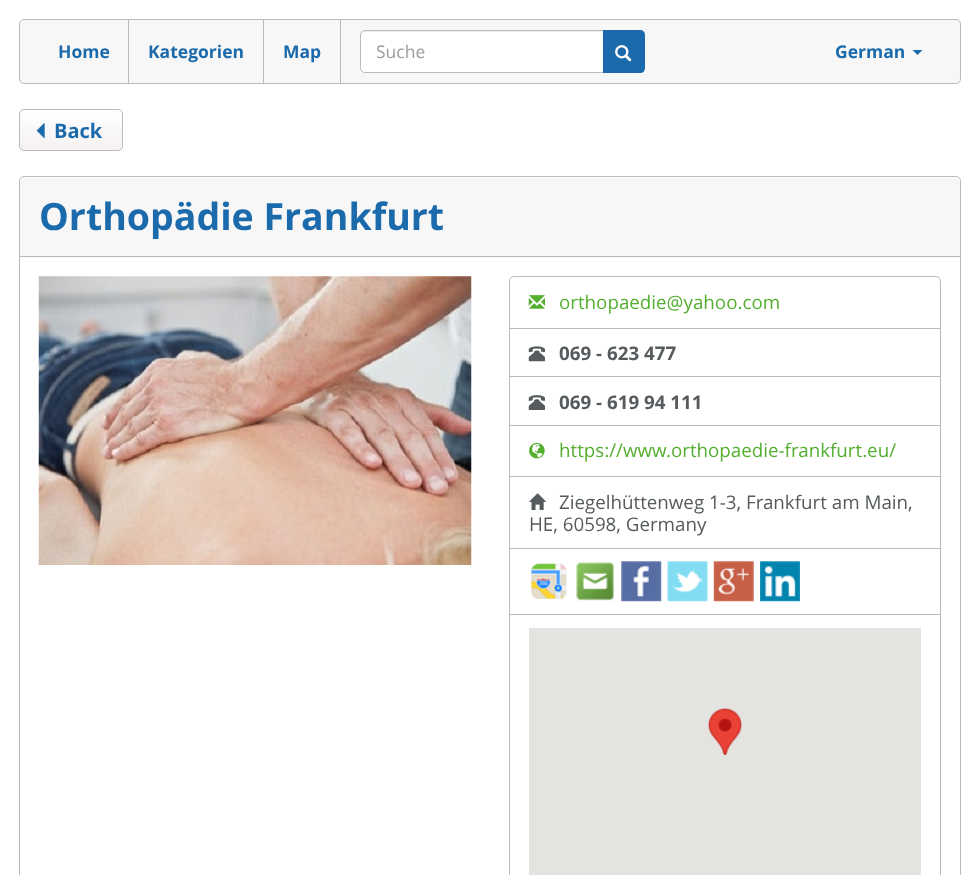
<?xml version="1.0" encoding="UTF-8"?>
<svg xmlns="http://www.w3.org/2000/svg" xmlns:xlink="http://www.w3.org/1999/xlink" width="980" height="875">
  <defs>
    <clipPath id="clip1"><rect x="19" y="109" width="104" height="42" rx="5" /></clipPath>
    <linearGradient id="g1" gradientUnits="userSpaceOnUse" x1="71" y1="110" x2="71" y2="150"><stop offset="0" stop-color="#ffffff" /><stop offset="0.27" stop-color="#fdfdfd" /><stop offset="0.43" stop-color="#faf8f9" /><stop offset="1" stop-color="#f5f1f0" /></linearGradient>
  </defs>
  <rect width="100%" height="100%" fill="#ffffff" />
  <rect x="19.5" y="19.5" width="941" height="64" rx="4.5" fill="#f7f7f7" stroke="#bebabb" />
  <rect x="128" y="20" width="1" height="63" fill="#bebabb" />
  <rect x="263" y="20" width="1" height="63" fill="#bebabb" />
  <rect x="340" y="20" width="1" height="63" fill="#bebabb" />
  <rect x="360" y="30" width="260" height="43" rx="5" fill="#ffffff" />
  <path d="M 365 32 h 250 c 2 0 4 2 4 4 v -1 c 0 -2 -2 -4 -4 -4 h -250 c -2 0 -4 2 -4 4 v 1 c 0 -2 2 -4 4 -4 z" fill="#ececec" />
  <rect x="360.5" y="30.5" width="259" height="42" rx="4.5" fill="none" stroke="#bebabb" />
  <path d="M 603 30 h 37 c 3 0 5 2 5 5 v 33 c 0 3 -2 5 -5 5 h -37 z" fill="#1b6aac" />
  <image x="615" y="45" width="17" height="17" xlink:href="image1.png" />
  <path d="M 912.5 50 h 10 l -5 5 z" fill="#1b6aac" />
  <g clip-path="url(#clip1)">
    <rect x="19" y="110" width="104" height="40" fill="url(#g1)" />
  </g>
  <rect x="19.5" y="109.5" width="103" height="41" rx="4.5" fill="none" stroke="#bebabb" />
  <image x="36" y="123" width="9" height="16" xlink:href="image2.png" />
  <rect x="19.5" y="176.5" width="941" height="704" rx="4.5" fill="none" stroke="#bebabb" />
  <path d="M 24 178 h 932 c 2 0 4 2 4 4 v 76 h -940 v -76 c 0 -2 2 -4 4 -4 z" fill="#f7f7f7" />
  <rect x="20" y="256" width="940" height="1" fill="#bebabb" />
  <image x="38" y="276" width="434" height="289" xlink:href="image3.png" />
  <path d="M 514 276.5 h 422 c 2.5 0 4.5 2 4.5 4.5 v 47.5 h -431 v -47.5 c 0 -2.5 2 -4.5 4.5 -4.5 z" fill="none" stroke="#bebabb" />
  <image x="528" y="295" width="17" height="14" xlink:href="image4.png" />
  <rect x="509.5" y="328.5" width="431" height="49" fill="none" stroke="#bebabb" />
  <image x="528" y="346" width="17" height="16" xlink:href="image5.png" />
  <rect x="510" y="377" width="430" height="1" fill="#ffffff" />
  <rect x="509.5" y="376.5" width="431" height="49" fill="none" stroke="#bebabb" />
  <image x="528" y="395" width="17" height="15" xlink:href="image6.png" />
  <rect x="509.5" y="425.5" width="431" height="52" fill="none" stroke="#bebabb" />
  <image x="529" y="442" width="16" height="17" xlink:href="image7.png" />
  <rect x="510" y="477" width="430" height="1" fill="#ffffff" />
  <rect x="509.5" y="476.5" width="431" height="72" fill="none" stroke="#bebabb" />
  <image x="529" y="493" width="18" height="17" xlink:href="image8.png" />
  <rect x="509.5" y="548.5" width="431" height="66" fill="none" stroke="#bebabb" />
  <image x="531" y="563" width="36" height="36" xlink:href="image9.png" />
  <image x="576" y="562" width="38" height="39" xlink:href="image10.png" />
  <image x="621" y="561" width="41" height="41" xlink:href="image11.png" />
  <image x="667" y="561" width="41" height="41" xlink:href="image12.png" />
  <image x="713" y="561" width="41" height="41" xlink:href="image13.png" />
  <image x="760" y="561" width="40" height="41" xlink:href="image14.png" />
  <rect x="509.5" y="614.5" width="431" height="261" fill="none" stroke="#bebabb" />
  <rect x="529" y="628" width="392" height="247" fill="#e5e3df" />
  <image x="708" y="708" width="34" height="47" xlink:href="image15.png" />
  <text x="58" y="58" style="font-family: Open Sans; font-size: 17.5px; font-weight: bold; fill: #1b6aac">Home</text>
  <text x="148" y="58" style="font-family: Open Sans; font-size: 17.5px; font-weight: bold; fill: #1b6aac">Kategorien</text>
  <text x="283" y="58" style="font-family: Open Sans; font-size: 17.5px; font-weight: bold; fill: #1b6aac">Map</text>
  <text x="376" y="58" style="font-family: Open Sans; font-size: 17.5px; fill: #9a9c9d">Suche</text>
  <text x="835" y="58" style="font-family: Open Sans; font-size: 17.5px; font-weight: bold; fill: #1b6aac">German</text>
  <text x="54" y="138" style="font-family: Open Sans; font-size: 20px; font-weight: bold; fill: #1b6aac">Back</text>
  <text x="39" y="230" style="font-family: Open Sans; font-size: 37.5px; font-weight: bold; fill: #1b6aac">Orthopädie Frankfurt</text>
  <text x="559" y="309" style="font-family: Open Sans; font-size: 18.75px; fill: #54af30">orthopaedie@yahoo.com</text>
  <text x="559" y="360" style="font-family: Open Sans; font-size: 18.75px; font-weight: bold; fill: #565b5e">069 - 623 477</text>
  <text x="559" y="409" style="font-family: Open Sans; font-size: 18.75px; font-weight: bold; fill: #565b5e">069 - 619 94 111</text>
  <text x="559" y="457" style="font-family: Open Sans; font-size: 18.75px; fill: #54af30">https://www.orthopaedie-frankfurt.eu/</text>
  <text x="559" y="509" style="font-family: Open Sans; font-size: 18.75px; fill: #565b5e">Ziegelhüttenweg 1-3, Frankfurt am Main,</text>
  <text x="529" y="531" style="font-family: Open Sans; font-size: 18.75px; fill: #565b5e">HE, 60598, Germany</text>
</svg>
